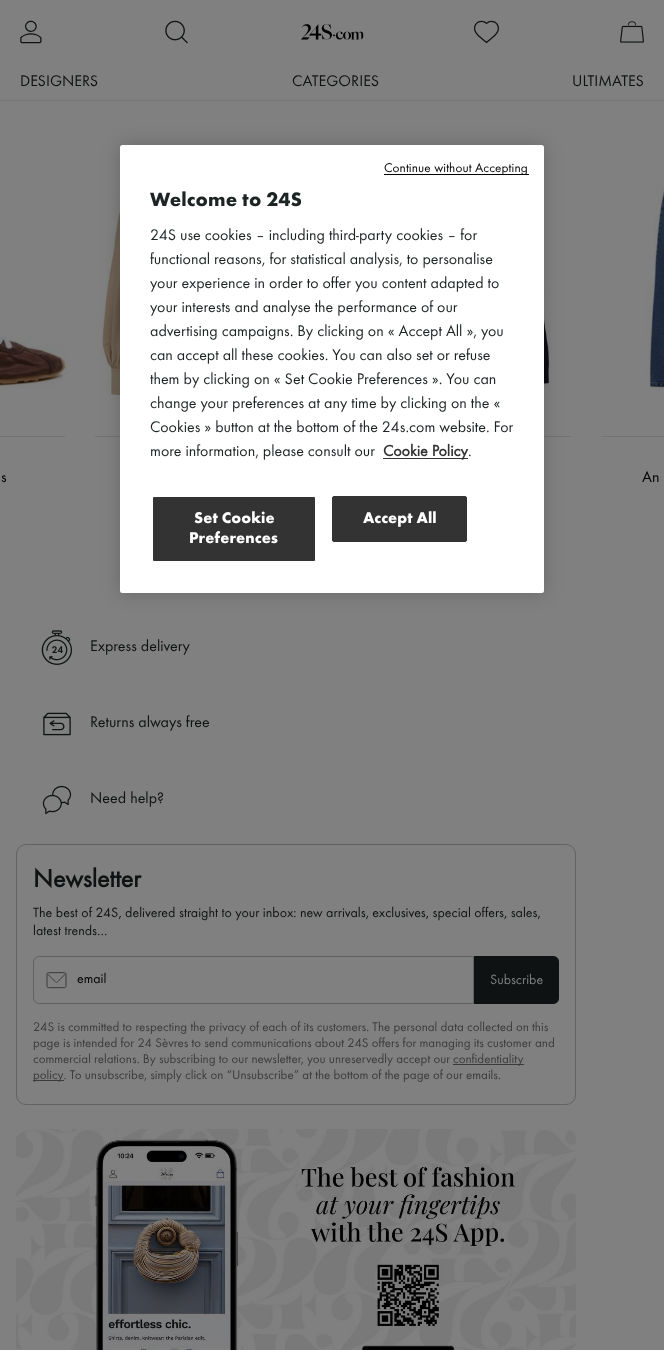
<?xml version="1.0" encoding="UTF-8"?>
<svg xmlns="http://www.w3.org/2000/svg" xmlns:xlink="http://www.w3.org/1999/xlink" width="664" height="1350">
  <rect width="100%" height="100%" fill="#808080" />
  <rect y="100" width="664" height="1" fill="#777777" />
  <image x="20" y="20" width="22" height="24" xlink:href="image1.png" />
  <image x="165" y="20" width="23" height="24" xlink:href="image2.png" />
  <image x="301" y="24" width="63" height="16" xlink:href="image3.png" />
  <image x="474" y="20" width="25" height="24" xlink:href="image4.png" />
  <image x="620" y="21" width="24" height="22" xlink:href="image5.png" />
  <image x="96" y="145" width="27" height="251" xlink:href="image6.png" />
  <rect x="95" y="436" width="25" height="1" fill="#737373" />
  <image x="541" y="145" width="9" height="243" xlink:href="image7.png" />
  <rect x="544" y="436" width="27" height="1" fill="#737373" />
  <image x="0" y="335" width="68" height="55" xlink:href="image8.png" />
  <rect y="436" width="65" height="1" fill="#737373" />
  <image x="646" y="186" width="18" height="203" xlink:href="image9.png" />
  <rect x="601" y="436" width="63" height="1" fill="#737373" />
  <image x="41" y="630" width="31" height="35" xlink:href="image10.png" />
  <image x="43" y="712" width="28" height="24" xlink:href="image11.png" />
  <image x="42" y="785" width="30" height="30" xlink:href="image12.png" />
  <rect x="16.5" y="844.5" width="559" height="260" rx="9.5" fill="none" stroke="#626262" />
  <path d="M 39 956.5 h 434.5 v 47 h -434.5 c -3 0 -5.5 -2.5 -5.5 -5.5 v -36 c 0 -3 2.5 -5.5 5.5 -5.5 z" fill="none" stroke="#626262" />
  <image x="46" y="972" width="21" height="17" xlink:href="image13.png" />
  <path d="M 474 956 h 79 c 3.5 0 6 2.5 6 6 v 36 c 0 3.5 -2.5 6 -6 6 h -79 z" fill="#0f1212" />
  <rect x="453" y="1064" width="71" height="1" fill="#3b3b3b" />
  <rect x="33" y="1080" width="31" height="1" fill="#3b3b3b" />
  <image x="16" y="1129" width="560" height="221" xlink:href="image14.png" />
  <rect x="120" y="145" width="424" height="448" rx="2.5" fill="#000000" fill-opacity="0.2" filter="blur(9px)" />
  <rect x="120" y="145" width="424" height="448" rx="2.5" fill="#ffffff" />
  <rect x="384" y="174" width="145" height="1" fill="#000000" />
  <rect x="383" y="458" width="85" height="1" fill="#333333" />
  <rect x="152.5" y="496.5" width="163" height="65" rx="1.5" fill="#333333" stroke="#ffffff" />
  <rect x="332.5" y="496.5" width="134" height="45" rx="1.5" fill="#333333" stroke="#333333" />
  <text x="20" y="86" style="font-family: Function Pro; font-size: 16px; fill: #0f1212">DESIGNERS</text>
  <text x="292" y="86" style="font-family: Function Pro; font-size: 16px; fill: #0f1212">CATEGORIES</text>
  <text x="572" y="86" style="font-family: Function Pro; font-size: 16px; fill: #0f1212">ULTIMATES</text>
  <text x="1" y="482" style="font-family: Function Pro; font-size: 16px; fill: #000000">s</text>
  <text x="642" y="482" style="font-family: Function Pro; font-size: 16px; fill: #000000">An</text>
  <text x="90" y="651" style="font-family: Function Pro; font-size: 16px; fill: #0f1212">Express delivery</text>
  <text x="90" y="727" style="font-family: Function Pro; font-size: 16px; fill: #0f1212">Returns always free</text>
  <text x="90" y="803" style="font-family: Function Pro; font-size: 16px; fill: #0f1212">Need help?</text>
  <text x="33" y="887" style="font-family: Function Pro; font-size: 26px; font-weight: bold; fill: #0f1212">Newsletter</text>
  <text x="33" y="917" style="font-family: Function Pro; font-size: 14px; fill: #0f1212">The best of 24S, delivered straight to your inbox: new arrivals, exclusives, special offers, sales,</text>
  <text x="33" y="935" style="font-family: Function Pro; font-size: 14px; fill: #0f1212">latest trends…</text>
  <text x="77" y="983" style="font-family: Function Pro; font-size: 14px; fill: #000000">email</text>
  <text x="490" y="984" style="font-family: Function Pro; font-size: 14px; fill: #808080">Subscribe</text>
  <text x="33" y="1031" style="font-family: Function Pro; font-size: 13px; fill: #3b3b3b">24S is committed to respecting the privacy of each of its customers. The personal data collected on this</text>
  <text x="33" y="1047" style="font-family: Function Pro; font-size: 13px; fill: #3b3b3b">page is intended for 24 Sèvres to send communications about 24S offers for managing its customer and</text>
  <text x="33" y="1063" style="font-family: Function Pro; font-size: 13px; fill: #3b3b3b">commercial relations. By subscribing to our newsletter, you unreservedly accept our</text>
  <text x="453" y="1063" style="font-family: Function Pro; font-size: 13px; fill: #3b3b3b">confidentiality</text>
  <text x="33" y="1079" style="font-family: Function Pro; font-size: 13px; fill: #3b3b3b">policy. To unsubscribe, simply click on “Unsubscribe” at the bottom of the page of our emails.</text>
  <text x="384" y="172" style="font-family: Function Pro; font-size: 13.25px; letter-spacing: 0.1px; fill: #000000">Continue without Accepting</text>
  <text x="150" y="206" style="font-family: 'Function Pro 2'; font-size: 20px; font-weight: bold; fill: #1d2424">Welcome to 24S</text>
  <text x="150" y="240" style="font-family: Function Pro; font-size: 16px; fill: #1d2424">24S use cookies – including third-party cookies – for</text>
  <text x="150" y="264" style="font-family: Function Pro; font-size: 16px; fill: #1d2424">functional reasons, for statistical analysis, to personalise</text>
  <text x="150" y="288" style="font-family: Function Pro; font-size: 16px; fill: #1d2424">your experience in order to offer you content adapted to</text>
  <text x="150" y="312" style="font-family: Function Pro; font-size: 16px; fill: #1d2424">your interests and analyse the performance of our</text>
  <text x="150" y="336" style="font-family: Function Pro; font-size: 16px; fill: #1d2424">advertising campaigns. By clicking on « Accept All », you</text>
  <text x="150" y="360" style="font-family: Function Pro; font-size: 16px; fill: #1d2424">can accept all these cookies. You can also set or refuse</text>
  <text x="150" y="384" style="font-family: Function Pro; font-size: 16px; fill: #1d2424">them by clicking on « Set Cookie Preferences ». You can</text>
  <text x="150" y="408" style="font-family: Function Pro; font-size: 16px; fill: #1d2424">change your preferences at any time by clicking on the «</text>
  <text x="150" y="432" style="font-family: Function Pro; font-size: 16px; fill: #1d2424">Cookies » button at the bottom of the 24s.com website. For</text>
  <text x="150" y="456" style="font-family: Function Pro; font-size: 16px; fill: #1d2424">more information, please consult our</text>
  <text x="383" y="456" style="font-family: Function Pro; font-size: 16px; font-weight: bold; fill: #333333">Cookie Policy</text>
  <text x="468" y="456" style="font-family: Function Pro; font-size: 16px; fill: #1d2424">.</text>
  <text x="194" y="523" style="font-family: 'Function Pro 2'; font-size: 16px; font-weight: bold; fill: #ffffff">Set Cookie</text>
  <text x="189" y="543" style="font-family: 'Function Pro 2'; font-size: 16px; font-weight: bold; fill: #ffffff">Preferences</text>
  <text x="363" y="523" style="font-family: 'Function Pro 2'; font-size: 16px; font-weight: bold; fill: #ffffff">Accept All</text>
</svg>
